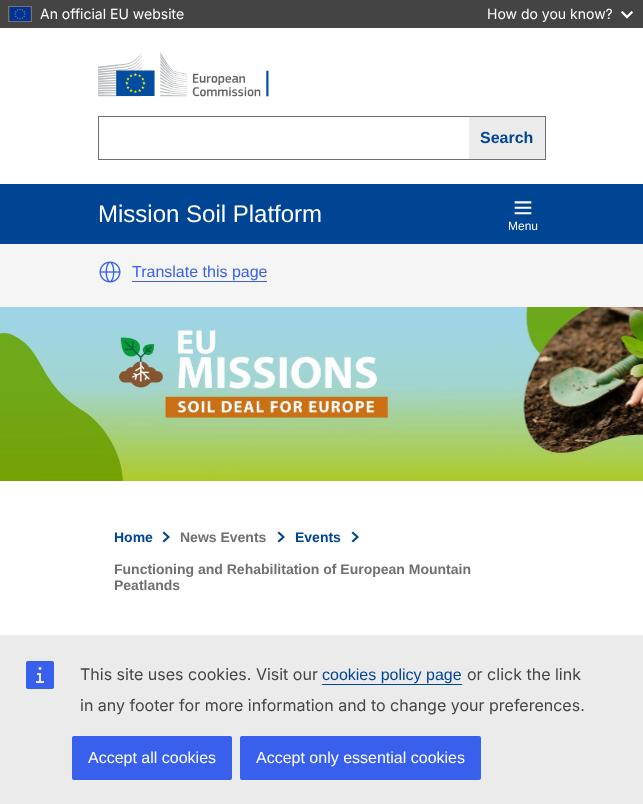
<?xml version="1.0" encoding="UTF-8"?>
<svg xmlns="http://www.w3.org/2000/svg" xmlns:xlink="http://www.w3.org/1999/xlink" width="643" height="804">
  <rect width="100%" height="100%" fill="#ffffff" />
  <rect width="643" height="28" fill="#444444" />
  <rect x="8.5" y="6.5" width="23" height="15" fill="none" stroke="#737373" />
  <image x="10" y="7" width="21" height="14" xlink:href="image1.png" />
  <image x="621" y="11" width="12" height="8" xlink:href="image2.png" />
  <image x="98" y="52" width="171" height="45" xlink:href="image3.png" />
  <rect x="98" y="116" width="448" height="1" fill="#707070" />
  <rect x="98" y="159" width="371" height="1" fill="#707070" />
  <rect x="98" y="116" width="1" height="44" fill="#707070" />
  <rect x="469" y="117" width="76" height="42" fill="#ebebeb" />
  <rect x="545" y="116" width="1" height="44" fill="#707070" />
  <rect x="469" y="159" width="77" height="1" fill="#707070" />
  <rect y="184" width="643" height="60" fill="#004494" />
  <image x="514" y="201" width="18" height="14" xlink:href="image4.png" />
  <rect y="244" width="643" height="63" fill="#f5f5f5" />
  <image x="99" y="261" width="22" height="22" xlink:href="image5.png" />
  <rect x="132" y="281" width="135" height="1" fill="#3860ed" />
  <image x="0" y="307" width="643" height="174" xlink:href="image6.png" />
  <image x="162" y="531" width="8" height="12" xlink:href="image7.png" />
  <image x="277" y="531" width="8" height="12" xlink:href="image7.png" />
  <image x="351" y="531" width="8" height="12" xlink:href="image7.png" />
  <rect y="635" width="643" height="169" fill="#ebebeb" />
  <image x="26" y="661" width="28" height="28" xlink:href="image8.png" />
  <rect x="322" y="684" width="140" height="1" fill="#004494" />
  <rect x="72" y="736" width="160" height="44" rx="2" fill="#3860ed" />
  <rect x="240" y="736" width="241" height="44" rx="2" fill="#3860ed" />
  <text x="40" y="19" style="font-family: Inter; font-size: 14px; fill: #ffffff">An official EU website</text>
  <text x="487" y="19" style="font-family: Inter; font-size: 14px; fill: #ffffff">How do you know?</text>
  <text x="480" y="143" style="font-family: Liberation Sans; font-size: 16px; font-weight: bold; fill: #004494">Search</text>
  <text x="98" y="222" style="font-family: Liberation Sans; font-size: 24px; fill: #ffffff">Mission Soil Platform</text>
  <text x="508" y="230" style="font-family: Liberation Sans; font-size: 12px; fill: #ffffff">Menu</text>
  <text x="132" y="277" style="font-family: Liberation Sans; font-size: 16px; fill: #3860ed">Translate this page</text>
  <text x="114" y="542" style="font-family: Liberation Sans; font-size: 14px; font-weight: bold; fill: #004494">Home</text>
  <text x="180" y="542" style="font-family: Liberation Sans; font-size: 14px; font-weight: bold; fill: #707070">News Events</text>
  <text x="295" y="542" style="font-family: Liberation Sans; font-size: 14px; font-weight: bold; fill: #004494">Events</text>
  <text x="114" y="574" style="font-family: Liberation Sans; font-size: 14px; font-weight: bold; fill: #707070">Functioning and Rehabilitation of European Mountain</text>
  <text x="114" y="590" style="font-family: Liberation Sans; font-size: 14px; font-weight: bold; fill: #707070">Peatlands</text>
  <text x="80" y="680" style="font-family: Inter; font-size: 16px; fill: #444444">This site uses cookies. Visit our</text>
  <text x="322" y="680" style="font-family: Liberation Sans; font-size: 16px; fill: #004494">cookies policy page</text>
  <text x="467" y="680" style="font-family: Inter; font-size: 16px; fill: #444444">or click the link</text>
  <text x="80" y="711" style="font-family: Inter; font-size: 16px; fill: #444444">in any footer for more information and to change your preferences.</text>
  <text x="88" y="763" style="font-family: Liberation Sans; font-size: 16px; fill: #ffffff">Accept all cookies</text>
  <text x="256" y="763" style="font-family: Liberation Sans; font-size: 16px; fill: #ffffff">Accept only essential cookies</text>
</svg>
